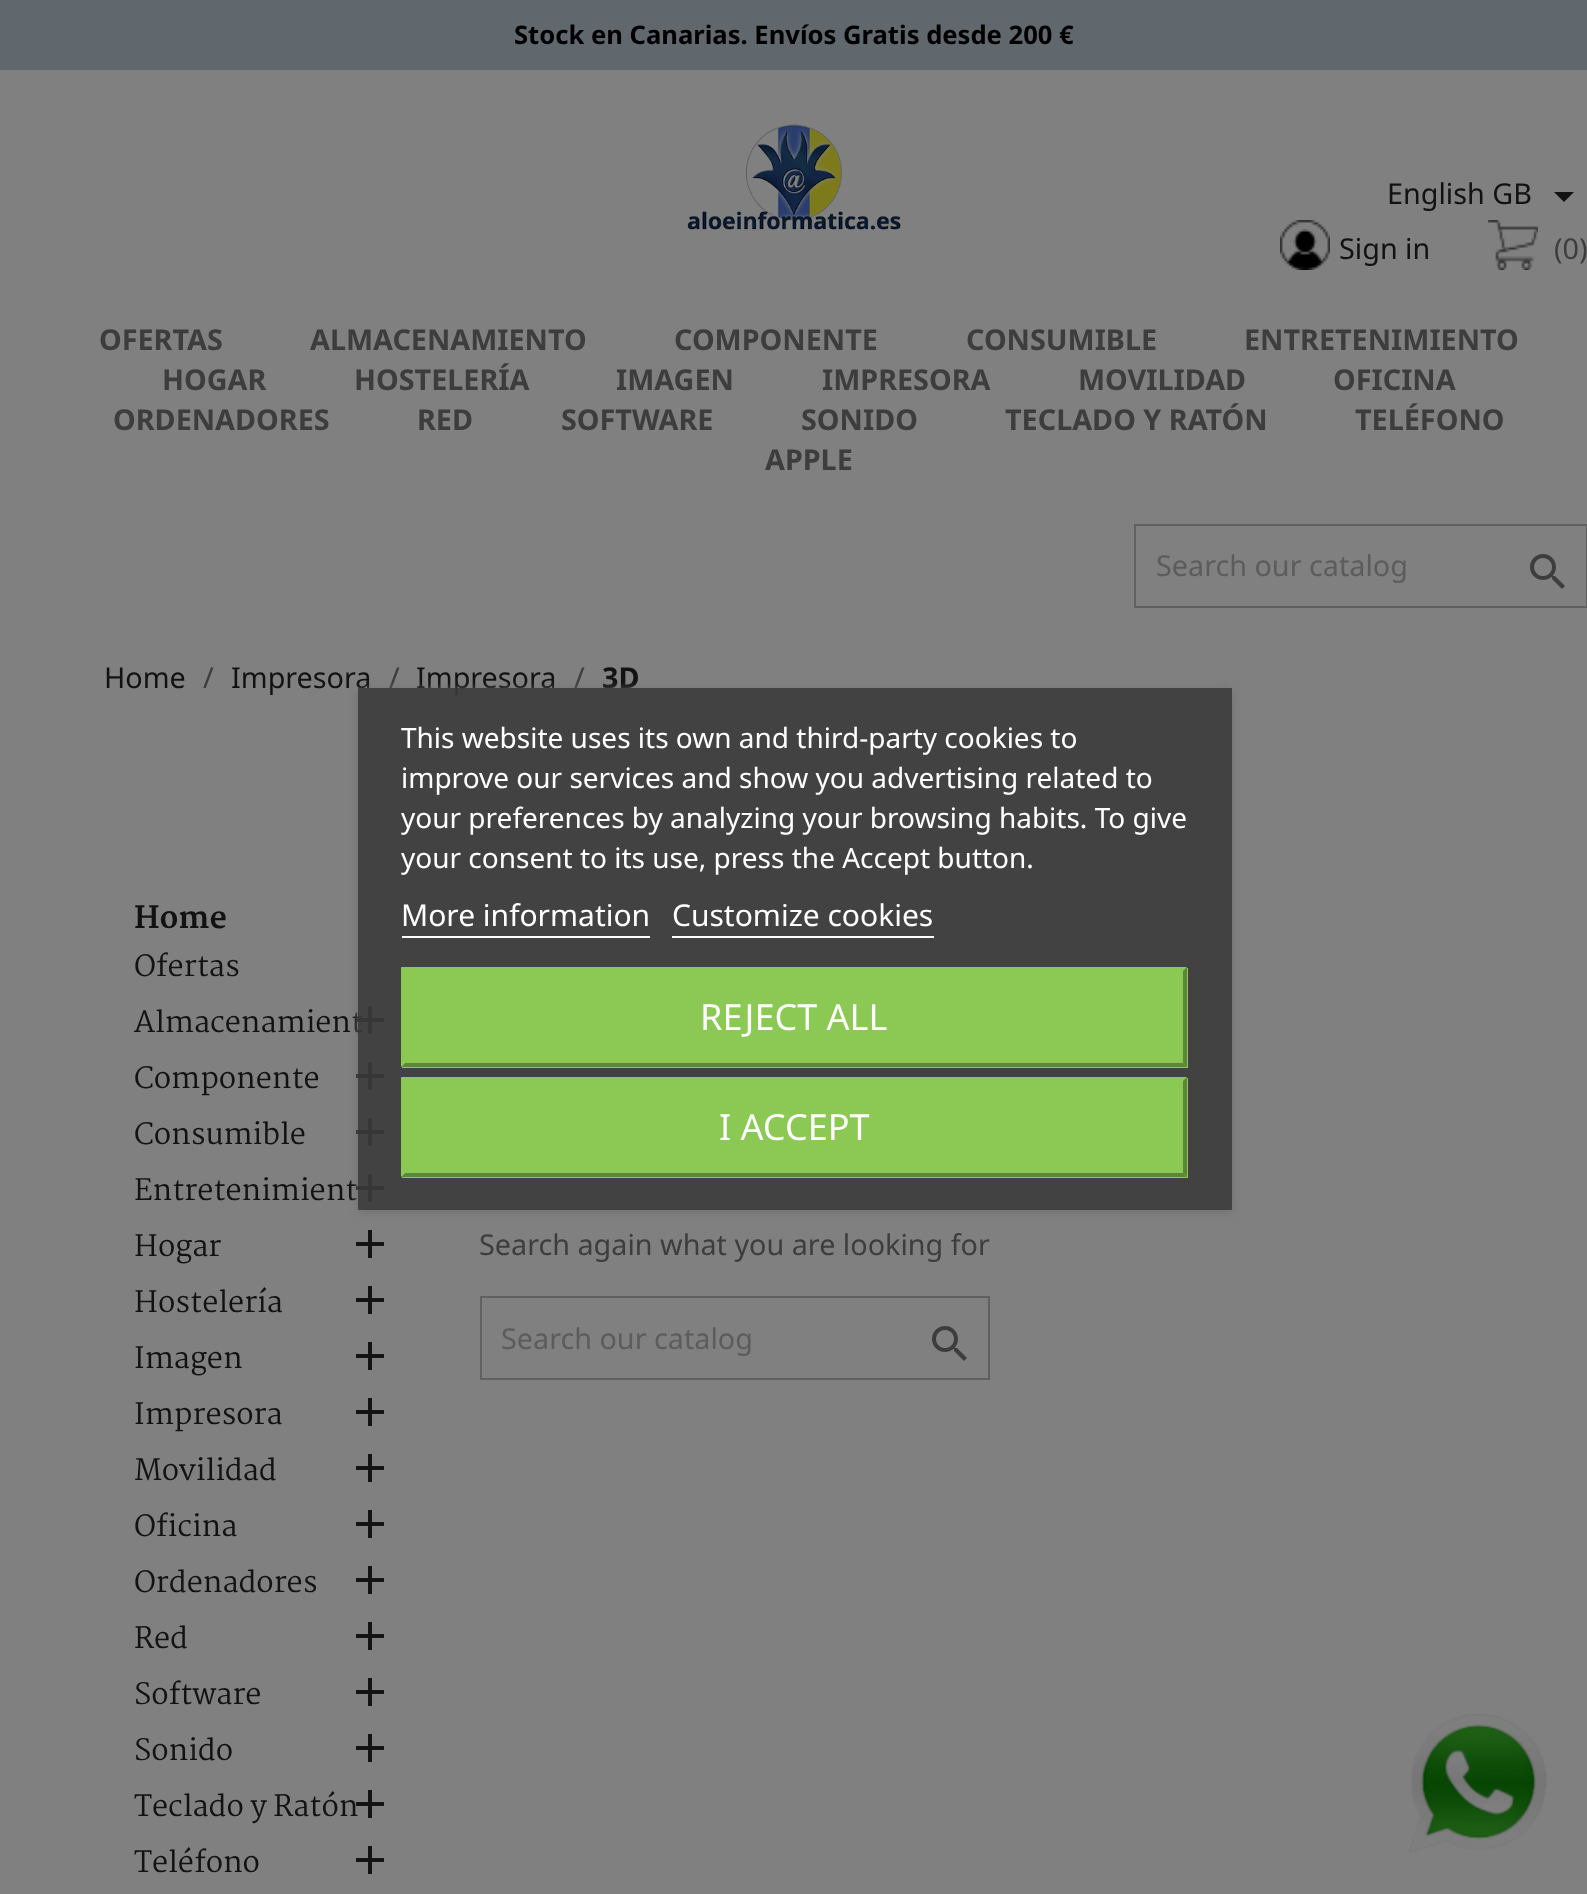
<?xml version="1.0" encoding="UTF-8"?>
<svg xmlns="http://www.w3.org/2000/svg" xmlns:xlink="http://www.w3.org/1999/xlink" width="1587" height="1894">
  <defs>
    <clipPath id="clip1"><path d="M 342 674 h 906 v 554 h -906 z m 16 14 h 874 v 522 h -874 z" clip-rule="evenodd" /></clipPath>
  </defs>
  <rect width="100%" height="100%" fill="#808080" />
  <rect width="1587" height="70" fill="#60686e" />
  <image x="687" y="124" width="214" height="106" xlink:href="image1.png" />
  <path d="M 1554 192 h 20 l -10 10 z" fill="#121212" />
  <image x="1280" y="220" width="50" height="50" xlink:href="image2.png" />
  <image x="1488" y="220" width="50" height="50" xlink:href="image3.png" />
  <rect x="1135" y="525" width="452" height="82" fill="none" stroke="#606060" stroke-width="2" />
  <image x="1530" y="554" width="35" height="35" xlink:href="image4.png" />
  <image x="356" y="1062" width="28" height="28" xlink:href="image6.png" />
  <image x="356" y="1118" width="28" height="28" xlink:href="image6.png" />
  <image x="356" y="1230" width="28" height="28" xlink:href="image6.png" />
  <image x="356" y="1286" width="28" height="28" xlink:href="image6.png" />
  <image x="356" y="1342" width="28" height="28" xlink:href="image6.png" />
  <image x="356" y="1398" width="28" height="28" xlink:href="image6.png" />
  <image x="356" y="1454" width="28" height="28" xlink:href="image6.png" />
  <image x="356" y="1510" width="28" height="28" xlink:href="image6.png" />
  <image x="356" y="1566" width="28" height="28" xlink:href="image6.png" />
  <image x="356" y="1622" width="28" height="28" xlink:href="image6.png" />
  <image x="356" y="1678" width="28" height="28" xlink:href="image6.png" />
  <image x="356" y="1734" width="28" height="28" xlink:href="image6.png" />
  <image x="356" y="1846" width="28" height="28" xlink:href="image6.png" />
  <rect x="481" y="1297" width="508" height="82" fill="none" stroke="#606060" stroke-width="2" />
  <image x="932" y="1326" width="35" height="35" xlink:href="image4.png" />
  <image x="1409" y="1714" width="138" height="139" xlink:href="image9.png" />
  <text x="514" y="44" style="font-family: Noto Sans; font-size: 25.6px; font-weight: bold; fill: #000000">Stock en Canarias. Envíos Gratis desde 200 €</text>
  <text x="1387" y="204" style="font-family: Noto Sans; font-size: 28.75px; fill: #121212">English GB</text>
  <text x="1339" y="259" style="font-family: Noto Sans; font-size: 28.75px; fill: #121212">Sign in</text>
  <text x="1554" y="259" style="font-family: Noto Sans; font-size: 28.75px; fill: #3d3d3d">(0)</text>
  <text x="99" y="350" style="font-family: Noto Sans; font-size: 28.75px; font-weight: bold; fill: #3d3d3d">OFERTAS</text>
  <text x="310" y="350" style="font-family: Noto Sans; font-size: 28.75px; font-weight: bold; fill: #3d3d3d">ALMACENAMIENTO</text>
  <text x="674" y="350" style="font-family: Noto Sans; font-size: 28.75px; font-weight: bold; fill: #3d3d3d">COMPONENTE</text>
  <text x="966" y="350" style="font-family: Noto Sans; font-size: 28.75px; font-weight: bold; fill: #3d3d3d">CONSUMIBLE</text>
  <text x="1244" y="350" style="font-family: Noto Sans; font-size: 28.75px; font-weight: bold; fill: #3d3d3d">ENTRETENIMIENTO</text>
  <text x="162" y="390" style="font-family: Noto Sans; font-size: 28.75px; font-weight: bold; fill: #3d3d3d">HOGAR</text>
  <text x="354" y="390" style="font-family: Noto Sans; font-size: 28.75px; font-weight: bold; fill: #3d3d3d">HOSTELERÍA</text>
  <text x="616" y="390" style="font-family: Noto Sans; font-size: 28.75px; font-weight: bold; fill: #3d3d3d">IMAGEN</text>
  <text x="822" y="390" style="font-family: Noto Sans; font-size: 28.75px; font-weight: bold; fill: #3d3d3d">IMPRESORA</text>
  <text x="1078" y="390" style="font-family: Noto Sans; font-size: 28.75px; font-weight: bold; fill: #3d3d3d">MOVILIDAD</text>
  <text x="1333" y="390" style="font-family: Noto Sans; font-size: 28.75px; font-weight: bold; fill: #3d3d3d">OFICINA</text>
  <text x="113" y="430" style="font-family: Noto Sans; font-size: 28.75px; font-weight: bold; fill: #3d3d3d">ORDENADORES</text>
  <text x="417" y="430" style="font-family: Noto Sans; font-size: 28.75px; font-weight: bold; fill: #3d3d3d">RED</text>
  <text x="561" y="430" style="font-family: Noto Sans; font-size: 28.75px; font-weight: bold; fill: #3d3d3d">SOFTWARE</text>
  <text x="801" y="430" style="font-family: Noto Sans; font-size: 28.75px; font-weight: bold; fill: #3d3d3d">SONIDO</text>
  <text x="1005" y="430" style="font-family: Noto Sans; font-size: 28.75px; font-weight: bold; fill: #3d3d3d">TECLADO Y RATÓN</text>
  <text x="1355" y="430" style="font-family: Noto Sans; font-size: 28.75px; font-weight: bold; fill: #3d3d3d">TELÉFONO</text>
  <text x="765" y="470" style="font-family: Noto Sans; font-size: 28.75px; font-weight: bold; fill: #3d3d3d">APPLE</text>
  <text x="1156" y="576" style="font-family: Noto Sans; font-size: 28.75px; fill: #5c5c5c">Search our catalog</text>
  <text x="104" y="688" style="font-family: Noto Sans; font-size: 28.75px; fill: #121212">Home</text>
  <text x="203" y="688" style="font-family: Noto Sans; font-size: 28.75px; fill: #3d3d3d">/</text>
  <text x="231" y="688" style="font-family: Noto Sans; font-size: 28.75px; fill: #121212">Impresora</text>
  <text x="389" y="688" style="font-family: Noto Sans; font-size: 28.75px; fill: #3d3d3d">/</text>
  <text x="416" y="688" style="font-family: Noto Sans; font-size: 28.75px; fill: #121212">Impresora</text>
  <text x="574" y="688" style="font-family: Noto Sans; font-size: 28.75px; fill: #3d3d3d">/</text>
  <text x="602" y="688" style="font-family: Noto Sans; font-size: 28.75px; font-weight: bold; fill: #121212">3D</text>
  <text x="134" y="928" style="font-family: Martel; font-size: 30px; font-weight: 800; fill: #121212">Home</text>
  <text x="134" y="976" style="font-family: Martel; font-size: 28.75px; fill: #121212">Ofertas</text>
  <text x="134" y="1032" style="font-family: Martel; font-size: 28.75px; fill: #121212">Almacenamient</text>
  <image x="357" y="1006" width="27" height="28" xlink:href="image5.png" />
  <text x="134" y="1088" style="font-family: Martel; font-size: 28.75px; fill: #121212">Componente</text>
  <text x="134" y="1144" style="font-family: Martel; font-size: 28.75px; fill: #121212">Consumible</text>
  <text x="134" y="1200" style="font-family: Martel; font-size: 28.75px; fill: #121212">Entretenimient</text>
  <image x="356" y="1174" width="28" height="28" xlink:href="image7.png" />
  <text x="134" y="1256" style="font-family: Martel; font-size: 28.75px; fill: #121212">Hogar</text>
  <text x="134" y="1312" style="font-family: Martel; font-size: 28.75px; fill: #121212">Hostelería</text>
  <text x="134" y="1368" style="font-family: Martel; font-size: 28.75px; fill: #121212">Imagen</text>
  <text x="134" y="1424" style="font-family: Martel; font-size: 28.75px; fill: #121212">Impresora</text>
  <text x="134" y="1480" style="font-family: Martel; font-size: 28.75px; fill: #121212">Movilidad</text>
  <text x="134" y="1536" style="font-family: Martel; font-size: 28.75px; fill: #121212">Oficina</text>
  <text x="134" y="1592" style="font-family: Martel; font-size: 28.75px; fill: #121212">Ordenadores</text>
  <text x="134" y="1648" style="font-family: Martel; font-size: 28.75px; fill: #121212">Red</text>
  <text x="134" y="1704" style="font-family: Martel; font-size: 28.75px; fill: #121212">Software</text>
  <text x="134" y="1760" style="font-family: Martel; font-size: 28.75px; fill: #121212">Sonido</text>
  <text x="134" y="1816" style="font-family: Martel; font-size: 28.75px; fill: #121212">Teclado y Ratón</text>
  <image x="356" y="1790" width="28" height="28" xlink:href="image8.png" />
  <text x="134" y="1872" style="font-family: Martel; font-size: 28.75px; fill: #121212">Teléfono</text>
  <text x="479" y="1255" style="font-family: Noto Sans; font-size: 28.75px; fill: #3d3d3d">Search again what you are looking for</text>
  <text x="501" y="1349" style="font-family: Noto Sans; font-size: 28.75px; fill: #5c5c5c">Search our catalog</text>
  <g clip-path="url(#clip1)">
    <rect x="358" y="690" width="874" height="522" fill="#707070" filter="blur(5px)" />
  </g>
  <rect x="358" y="688" width="874" height="522" fill="#3b3b3b" fill-opacity="0.9" />
  <text x="401" y="748" style="font-family: Noto Sans; font-size: 28px; fill: #ffffff">This website uses its own and third-party cookies to</text>
  <text x="401" y="788" style="font-family: Noto Sans; font-size: 28px; fill: #ffffff">improve our services and show you advertising related to</text>
  <text x="401" y="828" style="font-family: Noto Sans; font-size: 28px; fill: #ffffff">your preferences by analyzing your browsing habits. To give</text>
  <text x="401" y="868" style="font-family: Noto Sans; font-size: 28px; fill: #ffffff">your consent to its use, press the Accept button.</text>
  <text x="401" y="926" style="font-family: Noto Sans; font-size: 30px; fill: #ffffff">More information</text>
  <rect x="402" y="936" width="248" height="2" fill="#ffffff" />
  <text x="672" y="926" style="font-family: Noto Sans; font-size: 30px; fill: #ffffff">Customize cookies</text>
  <rect x="672" y="936" width="262" height="2" fill="#ffffff" />
  <rect x="402" y="968" width="786" height="100" fill="#8bc954" />
  <path d="M 401 967 h 786 l -4 4 h -778 z" fill="#8bc954" />
  <path d="M 1187 967 v 100 l -4 -4 v -92 z" fill="#5d8638" />
  <path d="M 1187 1067 h -786 l 4 -4 h 778 z" fill="#5d8638" />
  <path d="M 401 1067 v -100 l 4 4 v 92 z" fill="#8bc954" />
  <text x="700" y="1030" style="font-family: Noto Sans; font-size: 36px; fill: #ffffff">REJECT ALL</text>
  <rect x="402" y="1078" width="786" height="100" fill="#8bc954" />
  <path d="M 401 1077 h 786 l -4 4 h -778 z" fill="#8bc954" />
  <path d="M 1187 1077 v 100 l -4 -4 v -92 z" fill="#5d8638" />
  <path d="M 1187 1177 h -786 l 4 -4 h 778 z" fill="#5d8638" />
  <path d="M 401 1177 v -100 l 4 4 v 92 z" fill="#8bc954" />
  <text x="719" y="1140" style="font-family: Noto Sans; font-size: 36px; fill: #ffffff">I ACCEPT</text>
</svg>
